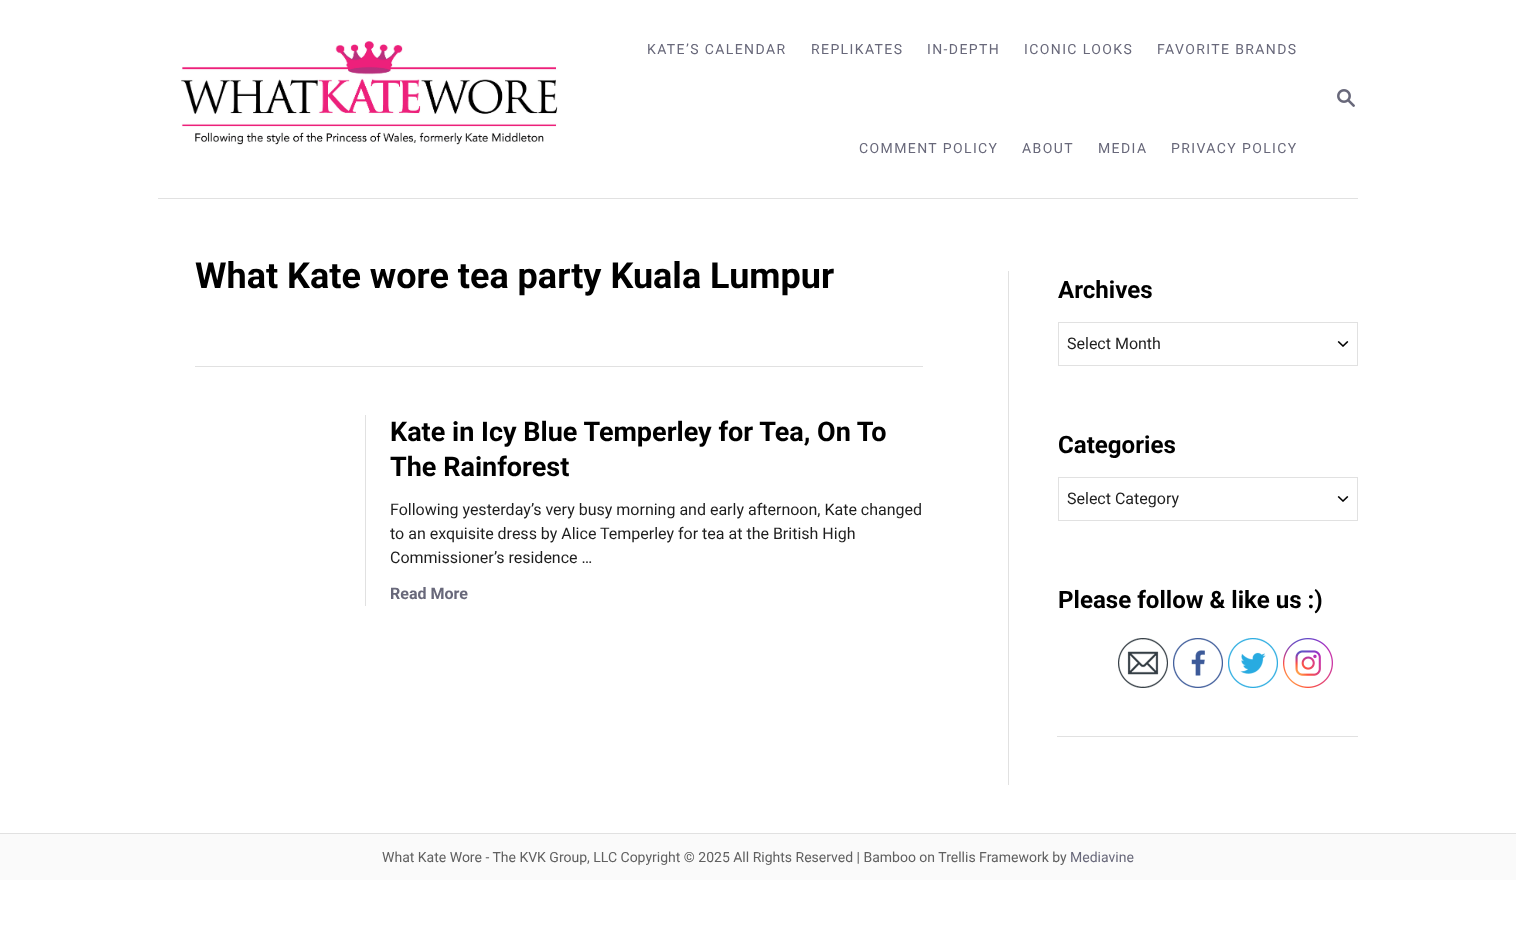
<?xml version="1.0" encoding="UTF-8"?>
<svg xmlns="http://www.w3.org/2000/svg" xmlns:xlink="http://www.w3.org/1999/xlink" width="1516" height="936">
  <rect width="100%" height="100%" fill="#ffffff" />
  <rect x="158" y="198" width="1200" height="1" fill="#e1e1e1" />
  <image x="181" y="41" width="377" height="104" xlink:href="image1.png" />
  <image x="1337" y="89" width="18" height="18" xlink:href="image2.png" />
  <rect x="195" y="366" width="728" height="1" fill="#e1e1e1" />
  <rect x="365" y="415" width="1" height="191" fill="#e1e1e1" />
  <rect x="1008" y="271" width="1" height="514" fill="#e1e1e1" />
  <image x="1337" y="341" width="12" height="6" xlink:href="image3.png" />
  <rect x="1058.5" y="322.5" width="299" height="43" fill="none" stroke="#e1e1e1" />
  <image x="1337" y="496" width="12" height="6" xlink:href="image3.png" />
  <rect x="1058.5" y="477.5" width="299" height="43" fill="none" stroke="#e1e1e1" />
  <image x="1118" y="638" width="50" height="50" xlink:href="image4.png" />
  <image x="1173" y="638" width="50" height="50" xlink:href="image5.png" />
  <image x="1228" y="638" width="50" height="50" xlink:href="image6.png" />
  <image x="1283" y="638" width="50" height="50" xlink:href="image7.png" />
  <rect x="1057" y="736" width="301" height="1" fill="#e1e1e1" />
  <rect y="834" width="1516" height="46" fill="#fafafa" />
  <rect y="833" width="1516" height="1" fill="#e1e1e1" />
  <text x="647" y="54" style="font-family: Roboto; font-size: 14px; letter-spacing: 1.4px; fill: #68687a">KATE’S CALENDAR</text>
  <text x="811" y="54" style="font-family: Roboto; font-size: 14px; letter-spacing: 1.4px; fill: #68687a">REPLIKATES</text>
  <text x="927" y="54" style="font-family: Roboto; font-size: 14px; letter-spacing: 1.4px; fill: #68687a">IN-DEPTH</text>
  <text x="1024" y="54" style="font-family: Roboto; font-size: 14px; letter-spacing: 1.4px; fill: #68687a">ICONIC LOOKS</text>
  <text x="1157" y="54" style="font-family: Roboto; font-size: 14px; letter-spacing: 1.4px; fill: #68687a">FAVORITE BRANDS</text>
  <text x="859" y="153" style="font-family: Roboto; font-size: 14px; letter-spacing: 1.4px; fill: #68687a">COMMENT POLICY</text>
  <text x="1022" y="153" style="font-family: Roboto; font-size: 14px; letter-spacing: 1.4px; fill: #68687a">ABOUT</text>
  <text x="1098" y="153" style="font-family: Roboto; font-size: 14px; letter-spacing: 1.4px; fill: #68687a">MEDIA</text>
  <text x="1171" y="153" style="font-family: Roboto; font-size: 14px; letter-spacing: 1.4px; fill: #68687a">PRIVACY POLICY</text>
  <text x="195" y="288" style="font-family: Roboto; font-size: 36px; font-weight: bold; fill: #000000">What Kate wore tea party Kuala Lumpur</text>
  <text x="390" y="441" style="font-family: Roboto; font-size: 27px; font-weight: bold; fill: #000000">Kate in Icy Blue Temperley for Tea, On To</text>
  <text x="390" y="476" style="font-family: Roboto; font-size: 27px; font-weight: bold; fill: #000000">The Rainforest</text>
  <text x="390" y="515" style="font-family: Roboto; font-size: 16px; fill: #1e1e1e">Following yesterday’s very busy morning and early afternoon, Kate changed</text>
  <text x="390" y="539" style="font-family: Roboto; font-size: 16px; fill: #1e1e1e">to an exquisite dress by Alice Temperley for tea at the British High</text>
  <text x="390" y="563" style="font-family: Roboto; font-size: 16px; fill: #1e1e1e">Commissioner’s residence …</text>
  <text x="390" y="599" style="font-family: Roboto; font-size: 16px; font-weight: bold; fill: #68687a">Read More</text>
  <text x="1058" y="298" style="font-family: Roboto; font-size: 24.1px; font-weight: bold; fill: #000000">Archives</text>
  <text x="1067" y="349" style="font-family: Roboto; font-size: 16px; fill: #1e1e1e">Select Month</text>
  <text x="1058" y="453" style="font-family: Roboto; font-size: 24.1px; font-weight: bold; fill: #000000">Categories</text>
  <text x="1067" y="504" style="font-family: Roboto; font-size: 16px; fill: #1e1e1e">Select Category</text>
  <text x="1058" y="608" style="font-family: Roboto; font-size: 24.1px; font-weight: bold; fill: #000000">Please follow &amp; like us :)</text>
  <text x="382" y="862" style="font-family: Roboto; font-size: 14px; fill: #606060">What Kate Wore - The KVK Group, LLC Copyright © 2025 All Rights Reserved | Bamboo on Trellis Framework by</text>
  <text x="1070" y="862" style="font-family: Roboto; font-size: 14px; fill: #68687a">Mediavine</text>
</svg>
